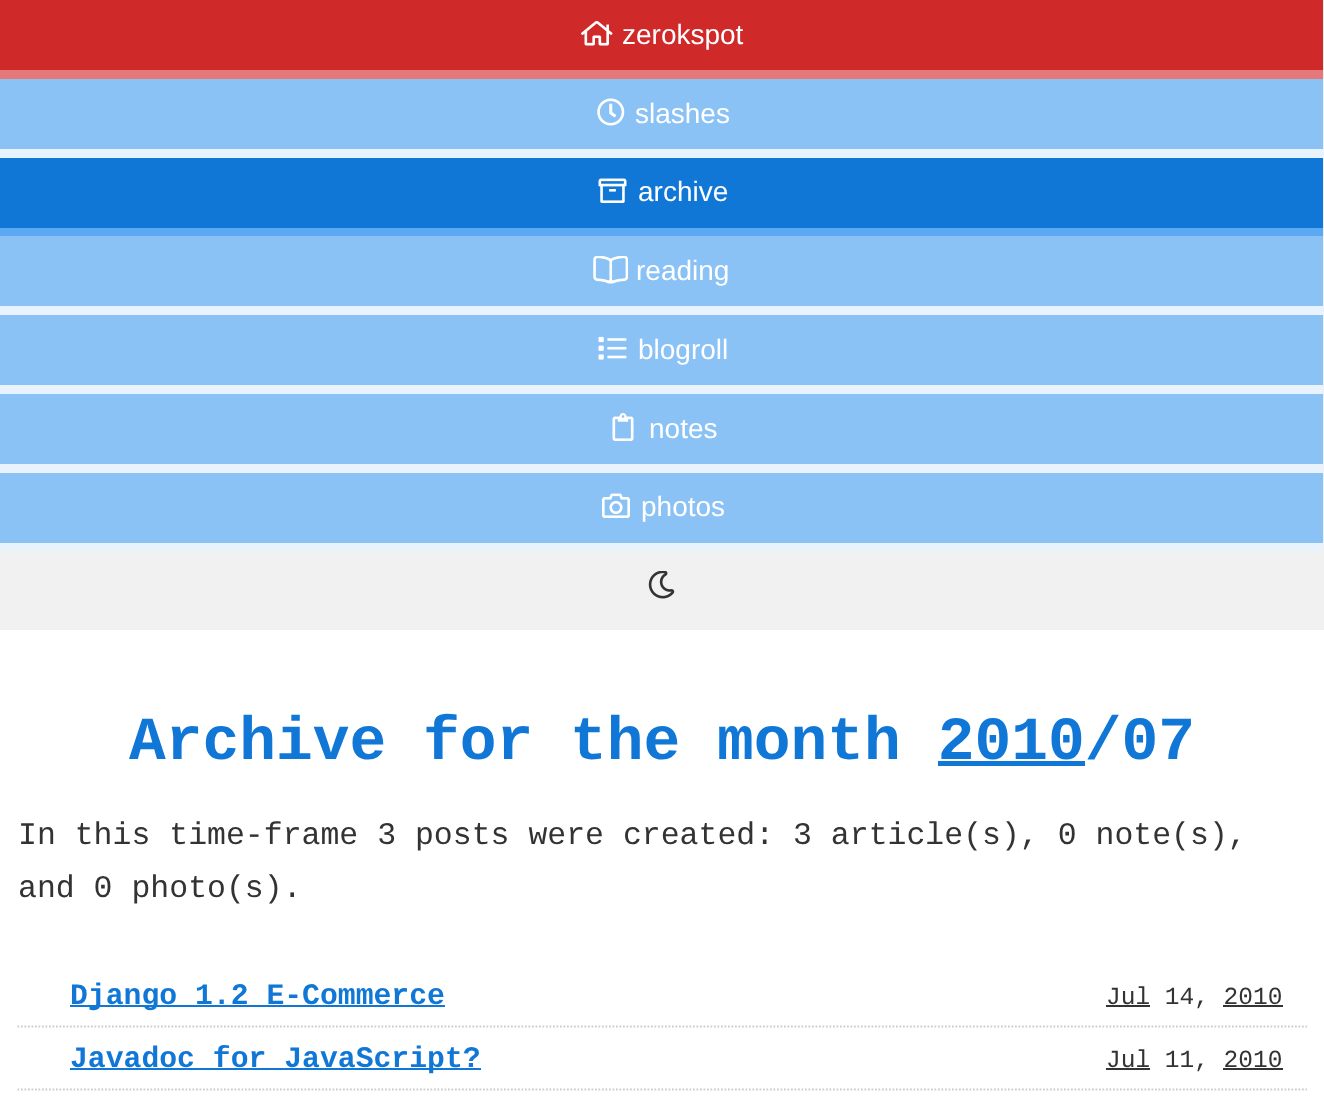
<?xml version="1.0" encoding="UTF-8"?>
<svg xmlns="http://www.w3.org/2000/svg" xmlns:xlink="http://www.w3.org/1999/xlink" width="1324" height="1108">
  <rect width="100%" height="100%" fill="#ffffff" />
  <rect width="1324" height="630" fill="#f1f1f1" />
  <rect width="1323" height="70" fill="#cf2929" />
  <rect y="70" width="1323" height="9" fill="#e57979" />
  <image x="581" y="21" width="32" height="25" xlink:href="image1.png" />
  <rect y="79" width="1323" height="70" fill="#8ac2f6" />
  <rect y="149" width="1323" height="9" fill="#e9f3fd" />
  <image x="597" y="98" width="28" height="28" xlink:href="image2.png" />
  <rect y="158" width="1323" height="70" fill="#1177d7" />
  <rect y="228" width="1323" height="8" fill="#5ba9f2" />
  <image x="598" y="178" width="29" height="25" xlink:href="image3.png" />
  <rect y="236" width="1323" height="70" fill="#8ac2f6" />
  <rect y="306" width="1323" height="9" fill="#e9f3fd" />
  <image x="593" y="256" width="35" height="28" xlink:href="image4.png" />
  <rect y="315" width="1323" height="70" fill="#8ac2f6" />
  <rect y="385" width="1323" height="9" fill="#e9f3fd" />
  <image x="598" y="336" width="29" height="24" xlink:href="image5.png" />
  <rect y="394" width="1323" height="70" fill="#8ac2f6" />
  <rect y="464" width="1323" height="9" fill="#e9f3fd" />
  <image x="612" y="413" width="22" height="28" xlink:href="image6.png" />
  <rect y="473" width="1323" height="70" fill="#8ac2f6" />
  <rect y="543" width="1323" height="8" fill="#e9f3fd" />
  <image x="602" y="493" width="28" height="25" xlink:href="image7.png" />
  <image x="648" y="571" width="27" height="28" xlink:href="image8.png" />
  <rect x="938" y="761" width="147" height="5" fill="#1177d7" />
  <path d="M 17.5 1026.5 h 1289.5" fill="none" stroke="#cccccc" stroke-width="1.8" stroke-dasharray="1.75 1.75" />
  <rect x="70" y="1005" width="375" height="2" fill="#1077d7" />
  <rect x="1106" y="1005" width="44" height="2" fill="#333333" />
  <rect x="1223" y="1005" width="60" height="2" fill="#333333" />
  <path d="M 17.5 1089.5 h 1289.5" fill="none" stroke="#cccccc" stroke-width="1.8" stroke-dasharray="1.75 1.75" />
  <rect x="70" y="1068" width="411" height="2" fill="#1077d7" />
  <rect x="1106" y="1068" width="44" height="2" fill="#333333" />
  <rect x="1223" y="1068" width="60" height="2" fill="#333333" />
  <text x="622" y="44" style="font-family: Liberation Sans; font-size: 28px; fill: #ffffff">zerokspot</text>
  <text x="635" y="123" style="font-family: Liberation Sans; font-size: 28px; fill: #ffffff">slashes</text>
  <text x="638" y="201" style="font-family: Liberation Sans; font-size: 28px; fill: #ffffff">archive</text>
  <text x="636" y="280" style="font-family: Liberation Sans; font-size: 28px; fill: #ffffff">reading</text>
  <text x="638" y="359" style="font-family: Liberation Sans; font-size: 28px; fill: #ffffff">blogroll</text>
  <text x="649" y="438" style="font-family: Liberation Sans; font-size: 28px; fill: #ffffff">notes</text>
  <text x="641" y="516" style="font-family: Liberation Sans; font-size: 28px; fill: #ffffff">photos</text>
  <text x="129" y="759" style="font-family: Liberation Mono; font-size: 61.25px; font-weight: bold; fill: #1177d7">Archive for the month 2010/07</text>
  <text x="18" y="844" style="font-family: Liberation Mono; font-size: 31.5px; fill: #333333">In this time-frame 3 posts were created: 3 article(s), 0 note(s),</text>
  <text x="18" y="897" style="font-family: Liberation Mono; font-size: 31.5px; fill: #333333">and 0 photo(s).</text>
  <text x="70" y="1004" style="font-family: Liberation Mono; font-size: 29.75px; font-weight: bold; fill: #1177d7">Django 1.2 E-Commerce</text>
  <text x="1106" y="1004" style="font-family: Liberation Mono; font-size: 24.5px; fill: #333333">Jul 14, 2010</text>
  <text x="70" y="1067" style="font-family: Liberation Mono; font-size: 29.75px; font-weight: bold; fill: #1177d7">Javadoc for JavaScript?</text>
  <text x="1106" y="1067" style="font-family: Liberation Mono; font-size: 24.5px; fill: #333333">Jul 11, 2010</text>
</svg>
